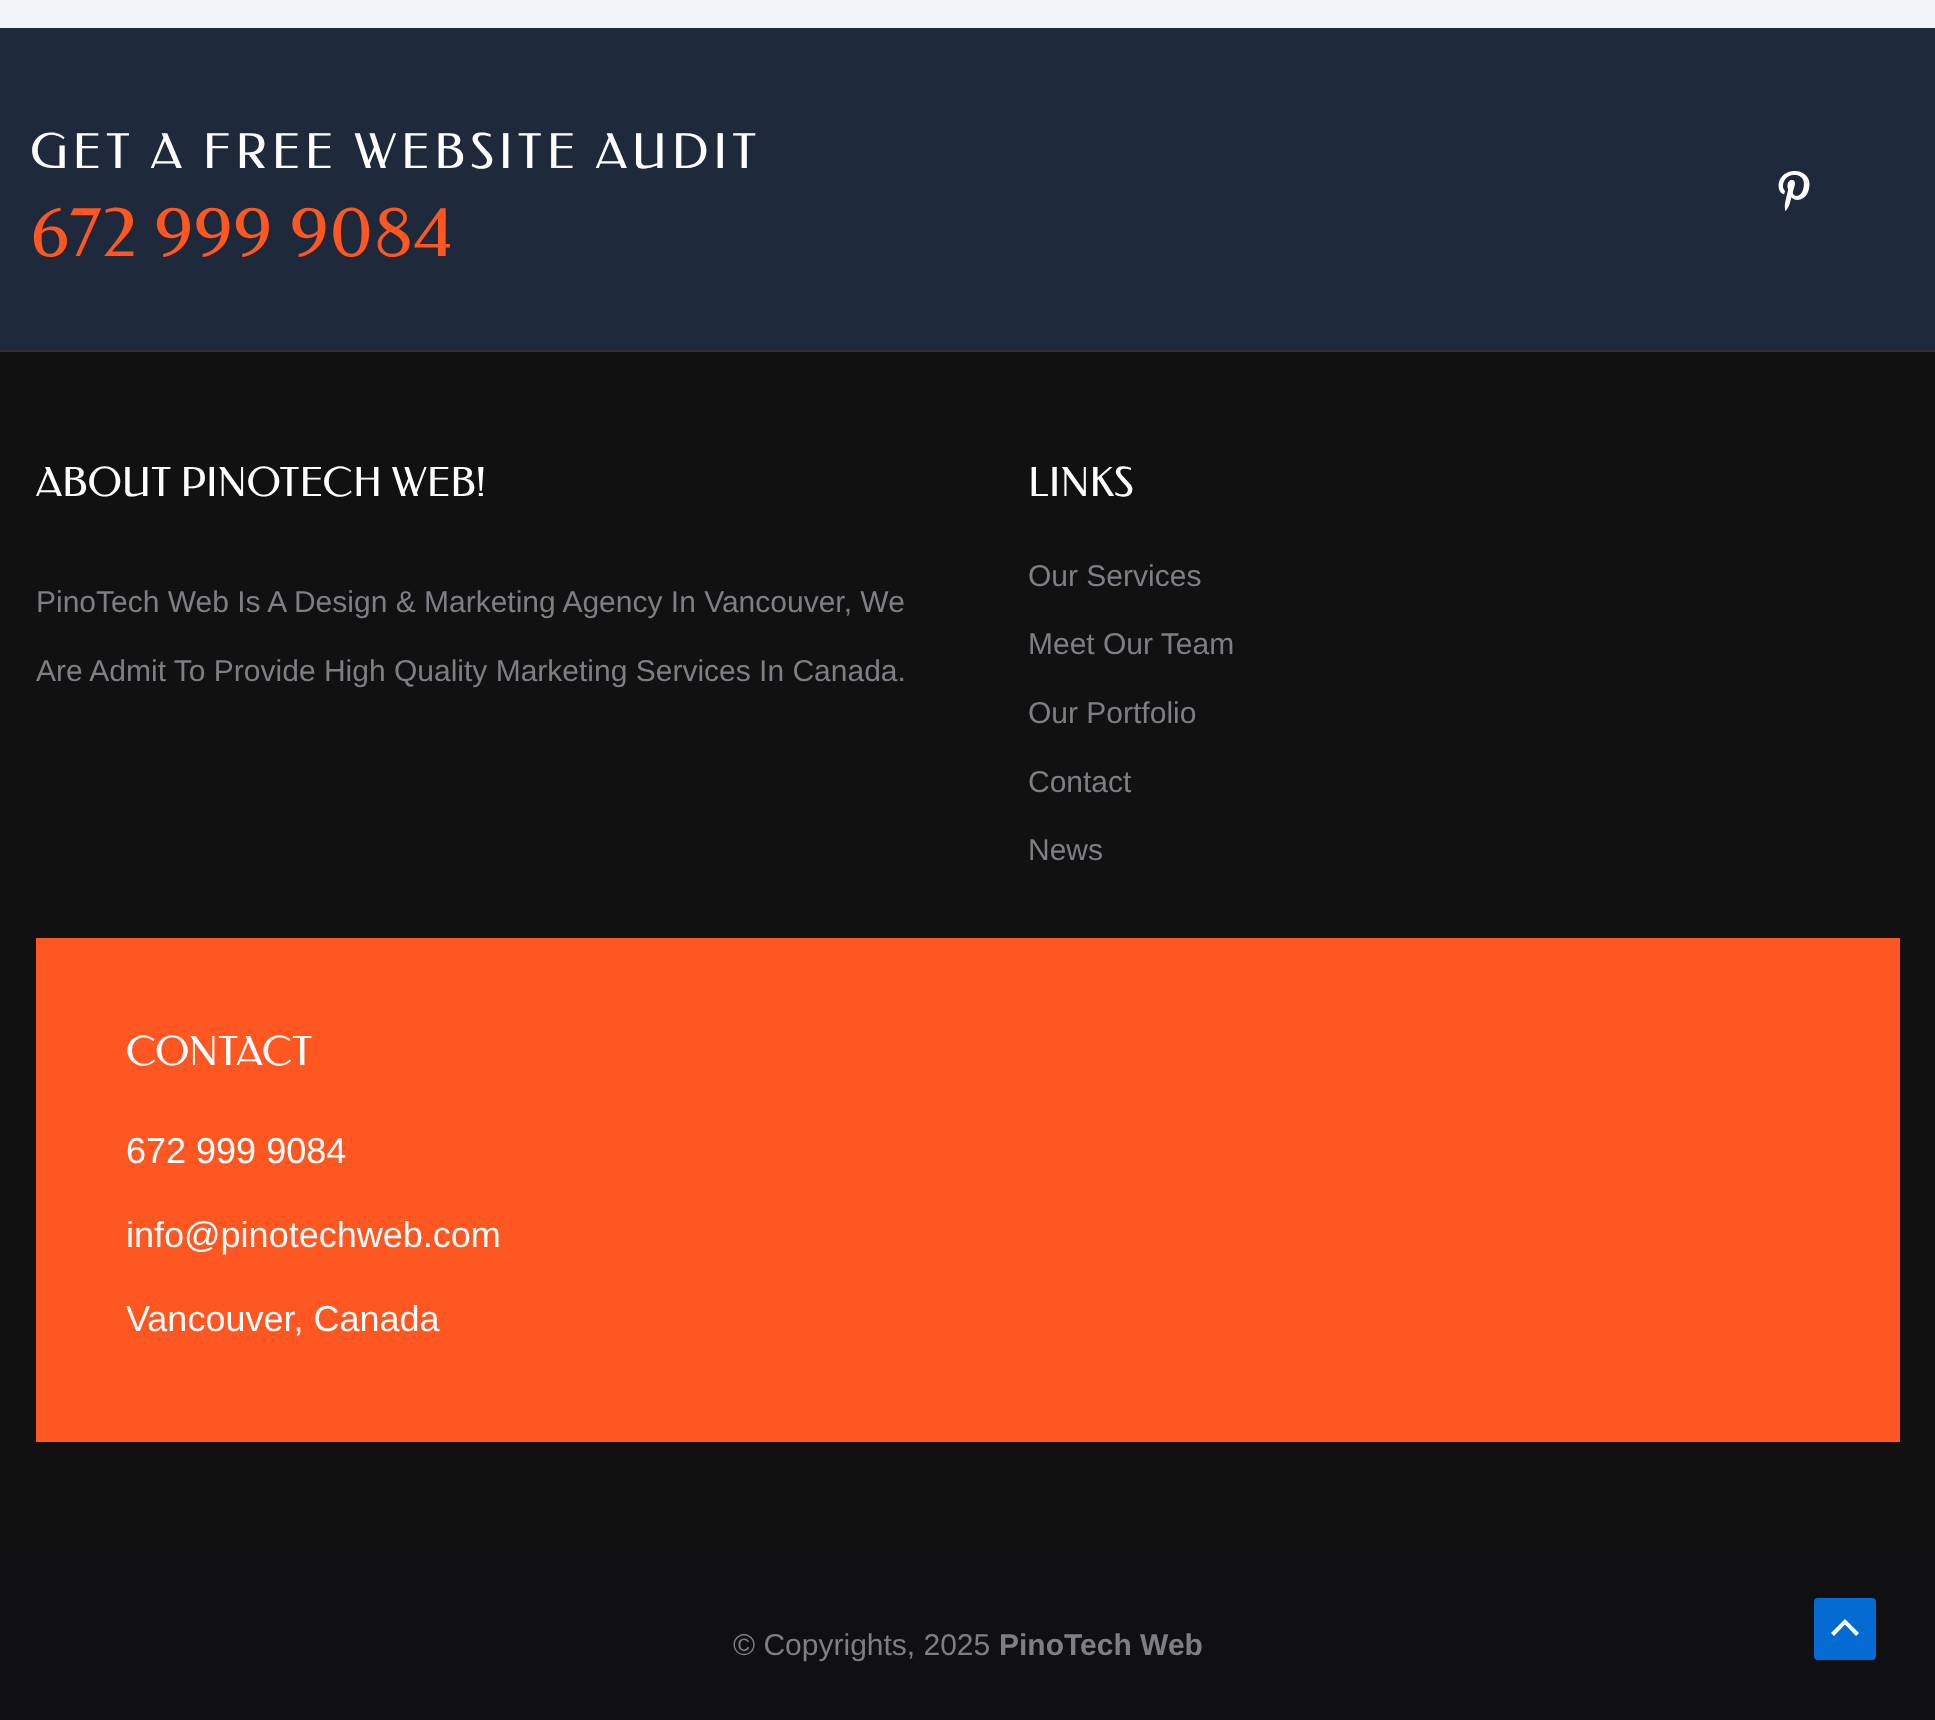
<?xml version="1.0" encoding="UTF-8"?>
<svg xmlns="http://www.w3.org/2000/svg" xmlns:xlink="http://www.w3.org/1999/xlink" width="1935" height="1720">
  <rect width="100%" height="100%" fill="#f0f5fa" />
  <rect y="28" width="1935" height="322" fill="#1e293b" />
  <rect y="350" width="1935" height="2" fill="#2f2e31" />
  <image x="1778" y="171" width="32" height="40" xlink:href="image1.png" />
  <rect y="352" width="1935" height="1198" fill="#111111" />
  <rect x="36" y="938" width="1864" height="504" fill="#ff5722" />
  <rect y="1550" width="1935" height="170" fill="#100f12" />
  <rect x="1814" y="1598" width="62" height="62" rx="4" fill="#046bd2" />
  <path d="M 1859 1633 l -14 -14 l -14 14 l 3 3 l 11 -11.5 l 11 11.5 z" fill="#ffffff" />
  <text x="30" y="168" style="font-family: Federo; font-size: 48px; letter-spacing: 4.8px; fill: #ffffff">GET A FREE WEBSITE AUDIT</text>
  <text x="30" y="256" style="font-family: Federo; font-size: 72px; fill: #ff5722">672 999 9084</text>
  <text x="36" y="496" style="font-family: Federo; font-size: 40px; fill: #ffffff">ABOUT PINOTECH WEB!</text>
  <text x="36" y="612" style="font-family: Liberation Sans; font-size: 30px; fill: #807e85">PinoTech Web Is A Design &amp; Marketing Agency In Vancouver, We</text>
  <text x="36" y="681" style="font-family: Liberation Sans; font-size: 30px; fill: #807e85">Are Admit To Provide High Quality Marketing Services In Canada.</text>
  <text x="1028" y="496" style="font-family: Federo; font-size: 40px; fill: #ffffff">LINKS</text>
  <text x="1028" y="586" style="font-family: Liberation Sans; font-size: 30px; fill: #807e85">Our Services</text>
  <text x="1028" y="654" style="font-family: Liberation Sans; font-size: 30px; fill: #807e85">Meet Our Team</text>
  <text x="1028" y="723" style="font-family: Liberation Sans; font-size: 30px; fill: #807e85">Our Portfolio</text>
  <text x="1028" y="792" style="font-family: Liberation Sans; font-size: 30px; fill: #807e85">Contact</text>
  <text x="1028" y="860" style="font-family: Liberation Sans; font-size: 30px; fill: #807e85">News</text>
  <text x="126" y="1065" style="font-family: Federo; font-size: 40px; fill: #ffffff">CONTACT</text>
  <text x="126" y="1163" style="font-family: Liberation Sans; font-size: 36px; fill: #ffffff">672 999 9084</text>
  <text x="126" y="1247" style="font-family: Liberation Sans; font-size: 36px; fill: #ffffff">info@pinotechweb.com</text>
  <text x="126" y="1331" style="font-family: Liberation Sans; font-size: 36px; fill: #ffffff">Vancouver, Canada</text>
  <text x="733" y="1655" style="font-family: Liberation Sans; font-size: 30px; fill: #807e85">© Copyrights, 2025</text>
  <text x="999" y="1655" style="font-family: Liberation Sans; font-size: 30px; font-weight: bold; fill: #807e85">PinoTech Web</text>
</svg>
